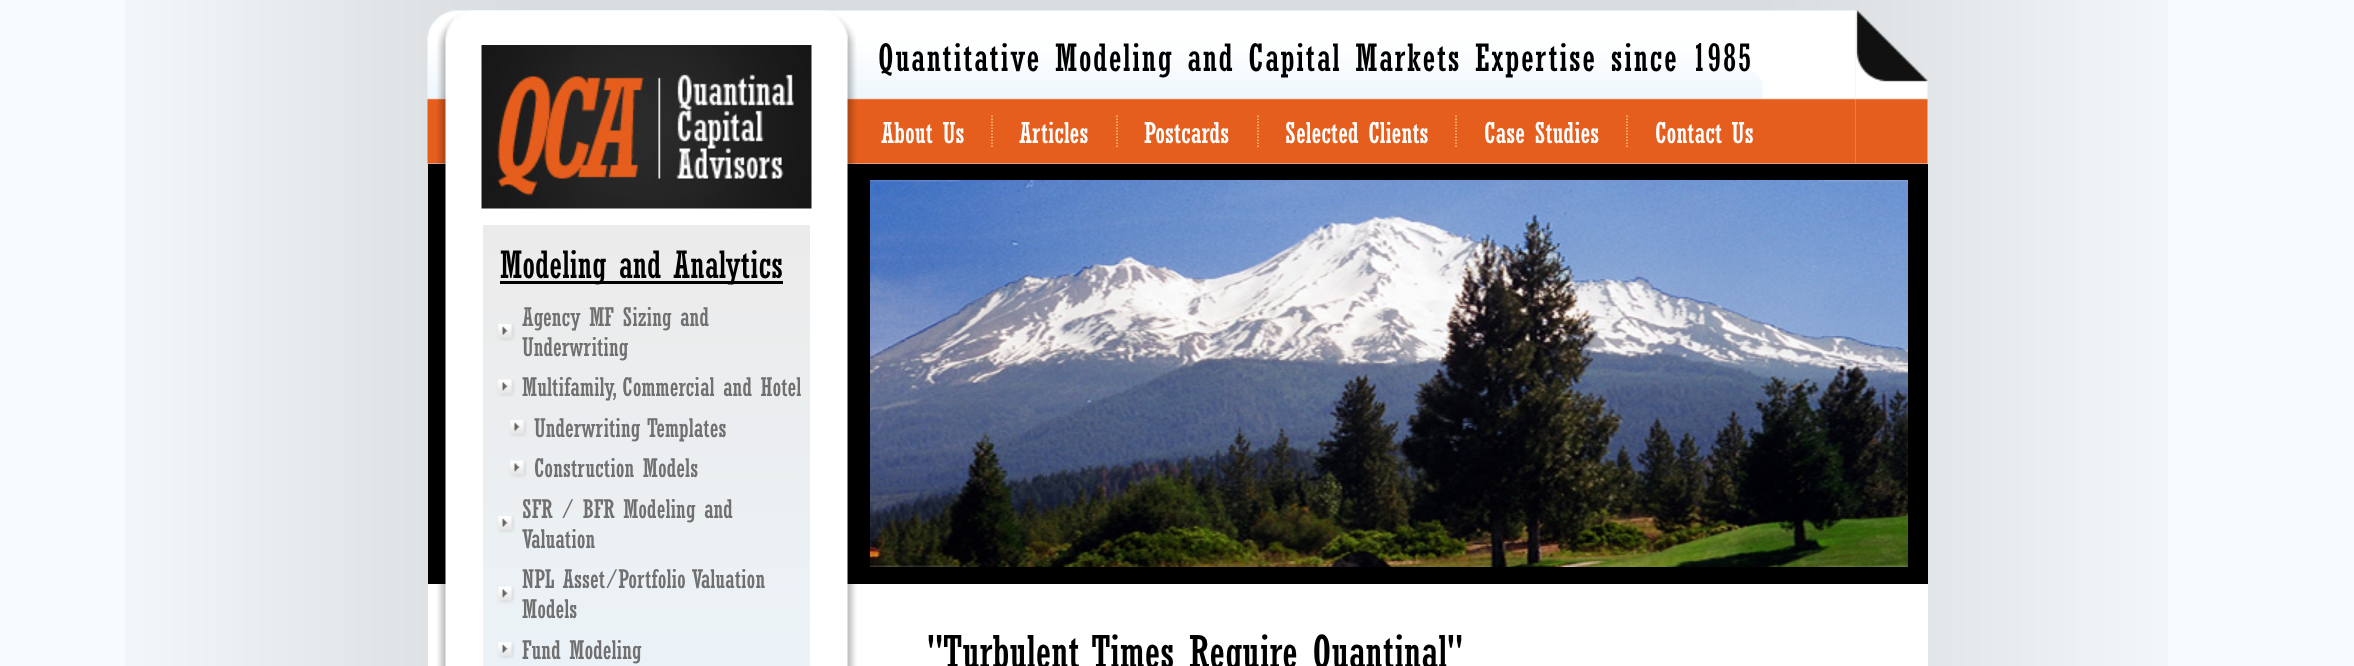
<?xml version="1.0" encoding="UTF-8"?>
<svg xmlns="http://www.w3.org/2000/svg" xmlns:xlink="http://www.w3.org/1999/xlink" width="2354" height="666">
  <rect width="100%" height="100%" fill="#f7fbfe" />
  <image x="125" y="0" width="2043" height="666" xlink:href="image1.png" />
  <image x="1855" y="10" width="73" height="154" xlink:href="image2.png" />
  <image x="427" y="10" width="1429" height="154" xlink:href="image3.png" />
  <path d="M 992 115.5 v 33" fill="none" stroke="#ffc57f" stroke-width="1.5" stroke-dasharray="1.5 1.5" />
  <path d="M 1117 115.5 v 33" fill="none" stroke="#ffc57f" stroke-width="1.5" stroke-dasharray="1.5 1.5" />
  <path d="M 1258 115.5 v 33" fill="none" stroke="#ffc57f" stroke-width="1.5" stroke-dasharray="1.5 1.5" />
  <path d="M 1456 115.5 v 33" fill="none" stroke="#ffc57f" stroke-width="1.5" stroke-dasharray="1.5 1.5" />
  <path d="M 1627 115.5 v 33" fill="none" stroke="#ffc57f" stroke-width="1.5" stroke-dasharray="1.5 1.5" />
  <image x="437" y="10" width="419" height="35" xlink:href="image4.png" />
  <rect x="428" y="584" width="1500" height="82" fill="#ffffff" />
  <rect x="428" y="164" width="1500" height="420" fill="#000000" />
  <image x="437" y="45" width="420" height="621" xlink:href="image5.png" />
  <image x="481" y="45" width="331" height="164" xlink:href="image6.png" />
  <image x="483" y="225" width="327" height="441" xlink:href="image7.png" />
  <rect x="500" y="281" width="283" height="3" fill="#000000" />
  <image x="497" y="324" width="18" height="17" xlink:href="image8.png" />
  <image x="497" y="379" width="18" height="18" xlink:href="image9.png" />
  <image x="509" y="420" width="18" height="17" xlink:href="image10.png" />
  <image x="509" y="460" width="18" height="18" xlink:href="image11.png" />
  <image x="497" y="516" width="18" height="17" xlink:href="image12.png" />
  <image x="497" y="586" width="18" height="18" xlink:href="image13.png" />
  <image x="497" y="642" width="18" height="17" xlink:href="image14.png" />
  <image x="870" y="180" width="1038" height="387" xlink:href="image15.png" />
  <text x="878" y="71" style="font-family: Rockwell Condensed; font-size: 37.5px; letter-spacing: 1.5px; fill: #000000">Quantitative Modeling and Capital Markets Expertise since 1985</text>
  <text x="881" y="143" style="font-family: Rockwell Condensed; font-size: 28.5px; fill: #ffffff">About Us</text>
  <text x="1019" y="143" style="font-family: Rockwell Condensed; font-size: 28.5px; fill: #ffffff">Articles</text>
  <text x="1144" y="143" style="font-family: Rockwell Condensed; font-size: 28.5px; fill: #ffffff">Postcards</text>
  <text x="1285" y="143" style="font-family: Rockwell Condensed; font-size: 28.5px; fill: #ffffff">Selected Clients</text>
  <text x="1484" y="143" style="font-family: Rockwell Condensed; font-size: 28.5px; fill: #ffffff">Case Studies</text>
  <text x="1655" y="143" style="font-family: Rockwell Condensed; font-size: 28.5px; fill: #ffffff">Contact Us</text>
  <text x="500" y="278" style="font-family: Rockwell Condensed; font-size: 37.5px; fill: #000000">Modeling and Analytics</text>
  <text x="522" y="326" style="font-family: Rockwell Condensed; font-size: 25.5px; fill: #707070">Agency MF Sizing and</text>
  <text x="522" y="356" style="font-family: Rockwell Condensed; font-size: 25.5px; fill: #707070">Underwriting</text>
  <text x="522" y="396" style="font-family: Rockwell Condensed; font-size: 25.5px; fill: #707070">Multifamily, Commercial and Hotel</text>
  <text x="534" y="437" style="font-family: Rockwell Condensed; font-size: 25.5px; fill: #707070">Underwriting Templates</text>
  <text x="534" y="477" style="font-family: Rockwell Condensed; font-size: 25.5px; fill: #707070">Construction Models</text>
  <text x="522" y="518" style="font-family: Rockwell Condensed; font-size: 25.5px; fill: #707070">SFR / BFR Modeling and</text>
  <text x="522" y="548" style="font-family: Rockwell Condensed; font-size: 25.5px; fill: #707070">Valuation</text>
  <text x="522" y="588" style="font-family: Rockwell Condensed; font-size: 25.5px; fill: #707070">NPL Asset/Portfolio Valuation</text>
  <text x="522" y="618" style="font-family: Rockwell Condensed; font-size: 25.5px; fill: #707070">Models</text>
  <text x="522" y="659" style="font-family: Rockwell Condensed; font-size: 25.5px; fill: #707070">Fund Modeling</text>
  <text x="927" y="668" style="font-family: Rockwell Condensed; font-size: 45px; fill: #000000">"Turbulent Times Require Quantinal"</text>
</svg>
